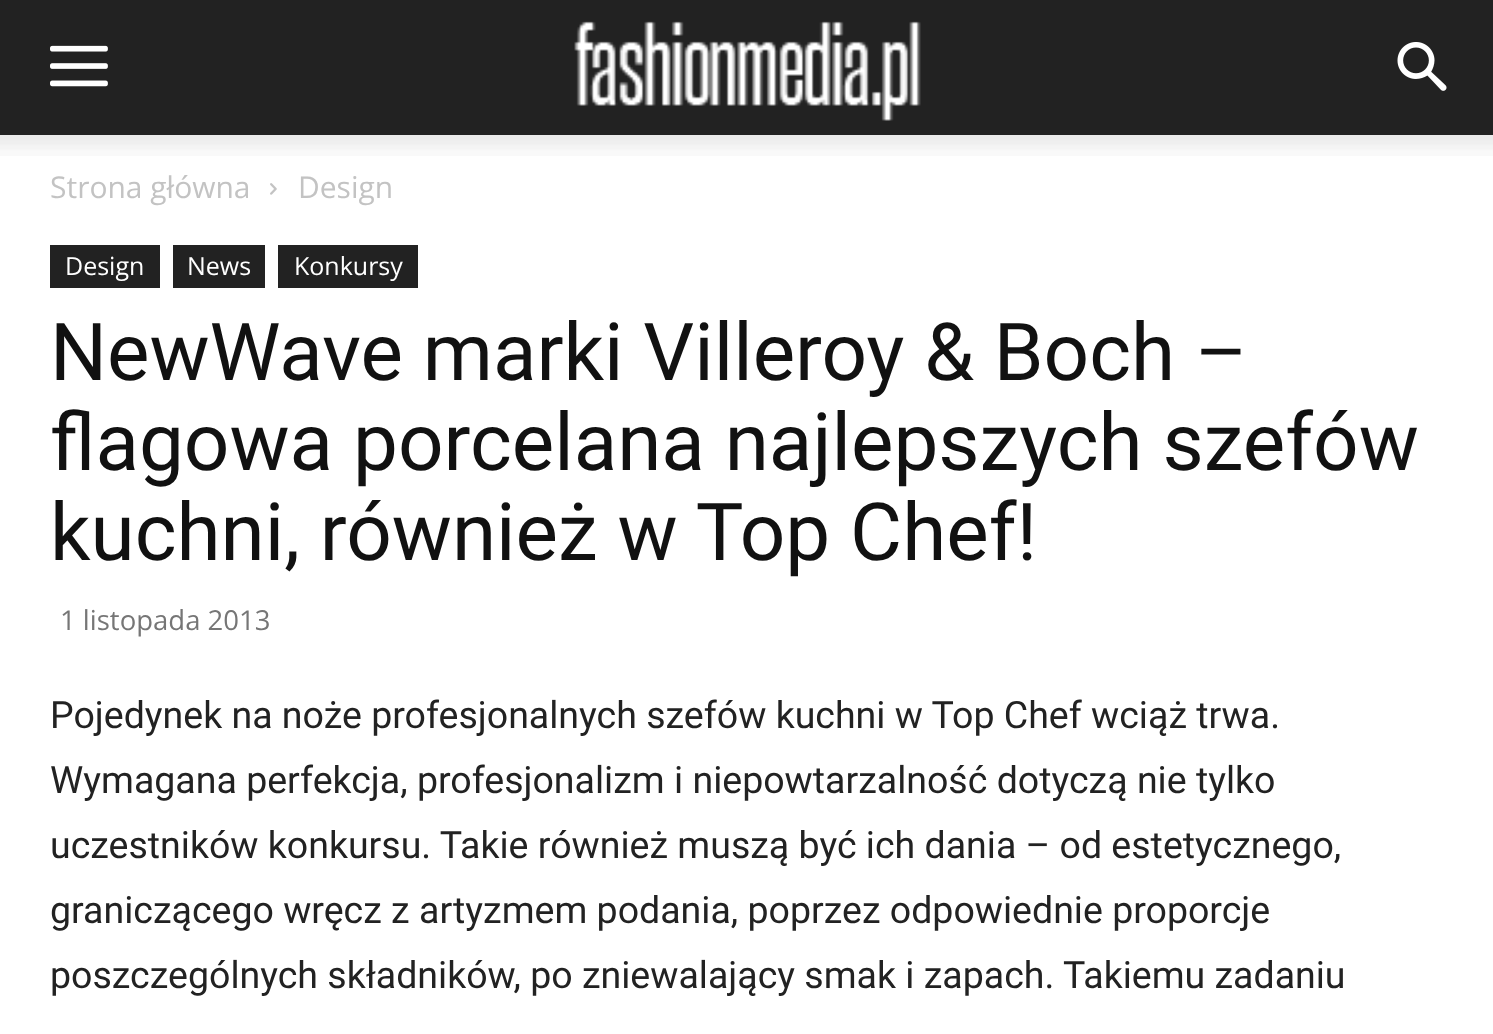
<?xml version="1.0" encoding="UTF-8"?>
<svg xmlns="http://www.w3.org/2000/svg" xmlns:xlink="http://www.w3.org/1999/xlink" width="1493" height="1034">
  <rect width="100%" height="100%" fill="#ffffff" />
  <rect width="1493" height="135" fill="#222222" />
  <image x="50" y="45" width="58" height="42" xlink:href="image1.png" />
  <image x="574" y="21" width="347" height="100" xlink:href="image2.png" />
  <image x="1397" y="42" width="50" height="49" xlink:href="image3.png" />
  <image x="0" y="135" width="1493" height="21" xlink:href="image4.png" />
  <image x="270" y="183" width="7" height="12" xlink:href="image5.png" />
  <rect x="50" y="245" width="110" height="43" fill="#222222" />
  <rect x="173" y="245" width="92" height="43" fill="#222222" />
  <rect x="278" y="245" width="140" height="43" fill="#222222" />
  <text x="50" y="198" style="font-family: Open Sans; font-size: 30px; fill: #c3c3c3">Strona główna</text>
  <text x="298" y="198" style="font-family: Open Sans; font-size: 30px; fill: #c3c3c3">Design</text>
  <text x="65" y="275" style="font-family: Open Sans; font-size: 25px; fill: #ffffff">Design</text>
  <text x="187" y="275" style="font-family: Open Sans; font-size: 25px; fill: #ffffff">News</text>
  <text x="294" y="275" style="font-family: Open Sans; font-size: 25px; fill: #ffffff">Konkursy</text>
  <text x="50" y="380" style="font-family: Roboto; font-size: 80px; fill: #111111">NewWave marki Villeroy &amp; Boch –</text>
  <text x="50" y="470" style="font-family: Roboto; font-size: 80px; fill: #111111">flagowa porcelana najlepszych szefów</text>
  <text x="50" y="560" style="font-family: Roboto; font-size: 80px; fill: #111111">kuchni, również w Top Chef!</text>
  <text x="60" y="630" style="font-family: Open Sans; font-size: 27.5px; fill: #767676">1 listopada 2013</text>
  <text x="50" y="728" style="font-family: Roboto; font-size: 37.5px; fill: #222222">Pojedynek na noże profesjonalnych szefów kuchni w Top Chef wciąż trwa.</text>
  <text x="50" y="793" style="font-family: Roboto; font-size: 37.5px; fill: #222222">Wymagana perfekcja, profesjonalizm i niepowtarzalność dotyczą nie tylko</text>
  <text x="50" y="858" style="font-family: Roboto; font-size: 37.5px; fill: #222222">uczestników konkursu. Takie również muszą być ich dania – od estetycznego,</text>
  <text x="50" y="923" style="font-family: Roboto; font-size: 37.5px; fill: #222222">graniczącego wręcz z artyzmem podania, poprzez odpowiednie proporcje</text>
  <text x="50" y="988" style="font-family: Roboto; font-size: 37.5px; fill: #222222">poszczególnych składników, po zniewalający smak i zapach. Takiemu zadaniu</text>
</svg>
